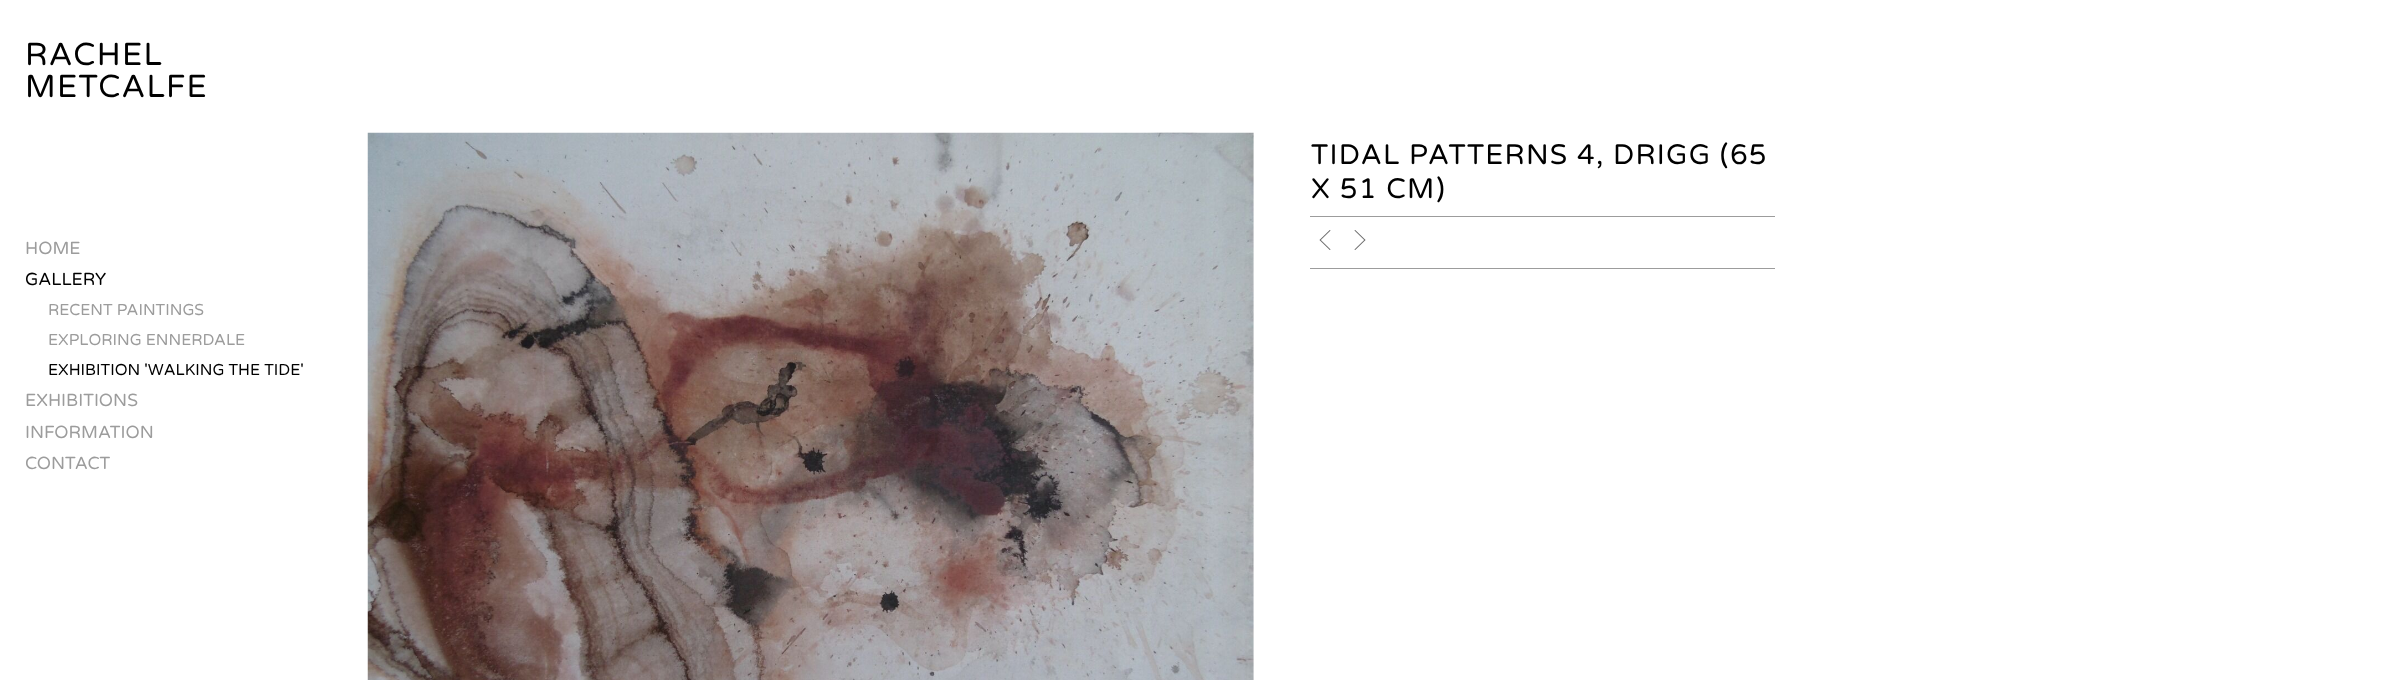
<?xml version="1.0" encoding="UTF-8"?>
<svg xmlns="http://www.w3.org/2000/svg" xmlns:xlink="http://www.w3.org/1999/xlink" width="2381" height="680">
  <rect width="100%" height="100%" fill="#ffffff" />
  <image x="367" y="132" width="887" height="548" xlink:href="image1.png" />
  <rect x="1310" y="216" width="465" height="1" fill="#9c9c9c" />
  <rect x="1310" y="268" width="465" height="1" fill="#9c9c9c" />
  <image x="1319" y="230" width="12" height="20" xlink:href="image2.png" />
  <image x="1354" y="230" width="12" height="20" xlink:href="image3.png" />
  <text x="25" y="65" style="font-family: Varela Round; font-size: 31.75px; letter-spacing: 1.25px; fill: #000000">RACHEL</text>
  <text x="25" y="97" style="font-family: Varela Round; font-size: 31.75px; letter-spacing: 1.25px; fill: #000000">METCALFE</text>
  <text x="1311" y="164" style="font-family: Varela Round; font-size: 28.2px; letter-spacing: 1.25px; fill: #000000">TIDAL PATTERNS 4, DRIGG (65</text>
  <text x="1311" y="198" style="font-family: Varela Round; font-size: 28.2px; letter-spacing: 1.25px; fill: #000000">X 51 CM)</text>
  <text x="25" y="254" style="font-family: Varela Round; font-size: 17.5px; fill: #9c9c9c">HOME</text>
  <text x="25" y="285" style="font-family: Varela Round; font-size: 17.5px; fill: #000000">GALLERY</text>
  <text x="25" y="406" style="font-family: Varela Round; font-size: 17.5px; fill: #9c9c9c">EXHIBITIONS</text>
  <text x="25" y="438" style="font-family: Varela Round; font-size: 17.5px; fill: #9c9c9c">INFORMATION</text>
  <text x="25" y="469" style="font-family: Varela Round; font-size: 17.5px; fill: #9c9c9c">CONTACT</text>
  <text x="48" y="315" style="font-family: Varela Round; font-size: 15.8px; fill: #9c9c9c">RECENT PAINTINGS</text>
  <text x="48" y="345" style="font-family: Varela Round; font-size: 15.8px; fill: #9c9c9c">EXPLORING ENNERDALE</text>
  <text x="48" y="375" style="font-family: Varela Round; font-size: 15.8px; fill: #000000">EXHIBITION 'WALKING THE TIDE'</text>
</svg>
